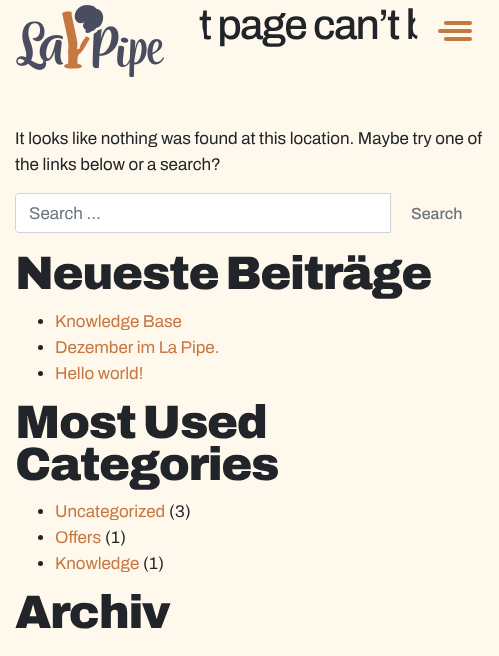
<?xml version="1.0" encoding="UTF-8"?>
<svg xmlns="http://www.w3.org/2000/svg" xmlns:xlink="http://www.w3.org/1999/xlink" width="499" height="656">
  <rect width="100%" height="100%" fill="#fff8ec" />
  <path d="M 19 193.5 h 371.5 v 39 h -371.5 c -2 0 -3.5 -1.5 -3.5 -3.5 v -32 c 0 -2 1.5 -3.5 3.5 -3.5 z" fill="#ffffff" stroke="#ced4da" />
  <circle cx="40.5" cy="321.5" r="2.5" fill="#212529" />
  <circle cx="40.5" cy="347.5" r="2.5" fill="#212529" />
  <circle cx="40.5" cy="373.5" r="2.5" fill="#212529" />
  <circle cx="40.5" cy="511.5" r="2.5" fill="#212529" />
  <circle cx="40.5" cy="537.5" r="2.5" fill="#212529" />
  <circle cx="40.5" cy="563.5" r="2.5" fill="#212529" />
  <text x="199" y="39" style="font-family: Archivo; font-size: 42.5px; font-weight: 600; letter-spacing: -1.75px; fill: #212529">t page can’t b</text>
  <image x="415" y="16" width="37" height="24" xlink:href="image2.png" />
  <rect x="444" y="37" width="28" height="4" rx="2" fill="#c67842" />
  <rect x="438" y="29" width="34" height="4" rx="2" fill="#c67842" />
  <rect x="444" y="21" width="28" height="4" rx="2" fill="#c67842" />
  <path d="M 204 36 c 0 -23 -41 -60 -91 -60 c -26 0 -49 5 -66 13 c -24 -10 -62 -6 -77 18 c -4 7 -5 15 -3 23 c -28 22 -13 73 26 71 c 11 12 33 20 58 20 c 31 0 58 -13 65 -31 c 18 5 37 1 39 -11 c 31 -7 49 -26 49 -43 z" fill="#fff8ec" />
  <image x="16" y="5" width="148" height="73" xlink:href="image1.png" />
  <text x="15" y="144" style="font-family: 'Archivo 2'; font-size: 17px; font-weight: 600; fill: #212529">It looks like nothing was found at this location. Maybe try one of</text>
  <text x="15" y="170" style="font-family: 'Archivo 2'; font-size: 17px; font-weight: 600; fill: #212529">the links below or a search?</text>
  <text x="29" y="219" style="font-family: 'Archivo 2'; font-size: 17px; font-weight: 600; fill: #6c757d">Search …</text>
  <text x="411" y="219" style="font-family: Archivo; font-size: 16px; font-weight: 600; fill: #6c757d">Search</text>
  <text x="15" y="289" style="font-family: 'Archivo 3'; font-size: 46.75px; font-weight: 600; letter-spacing: -1.4px; fill: #212529">Neueste Beiträge</text>
  <text x="55" y="327" style="font-family: 'Archivo 2'; font-size: 17px; font-weight: 600; fill: #c67842">Knowledge Base</text>
  <text x="55" y="353" style="font-family: 'Archivo 2'; font-size: 17px; font-weight: 600; fill: #c67842">Dezember im La Pipe.</text>
  <text x="55" y="379" style="font-family: 'Archivo 2'; font-size: 17px; font-weight: 600; fill: #c67842">Hello world!</text>
  <text x="15" y="438" style="font-family: 'Archivo 3'; font-size: 46.75px; font-weight: 600; letter-spacing: -1.4px; fill: #212529">Most Used</text>
  <text x="15" y="480" style="font-family: 'Archivo 3'; font-size: 46.75px; font-weight: 600; letter-spacing: -1.4px; fill: #212529">Categories</text>
  <text x="55" y="517" style="font-family: 'Archivo 2'; font-size: 17px; font-weight: 600; fill: #c67842">Uncategorized</text>
  <text x="169" y="517" style="font-family: 'Archivo 2'; font-size: 17px; font-weight: 600; fill: #212529">(3)</text>
  <text x="55" y="543" style="font-family: 'Archivo 2'; font-size: 17px; font-weight: 600; fill: #c67842">Offers</text>
  <text x="105" y="543" style="font-family: 'Archivo 2'; font-size: 17px; font-weight: 600; fill: #212529">(1)</text>
  <text x="55" y="569" style="font-family: 'Archivo 2'; font-size: 17px; font-weight: 600; fill: #c67842">Knowledge</text>
  <text x="143" y="569" style="font-family: 'Archivo 2'; font-size: 17px; font-weight: 600; fill: #212529">(1)</text>
  <text x="15" y="628" style="font-family: 'Archivo 3'; font-size: 46.75px; font-weight: 600; letter-spacing: -1.4px; fill: #212529">Archiv</text>
</svg>
